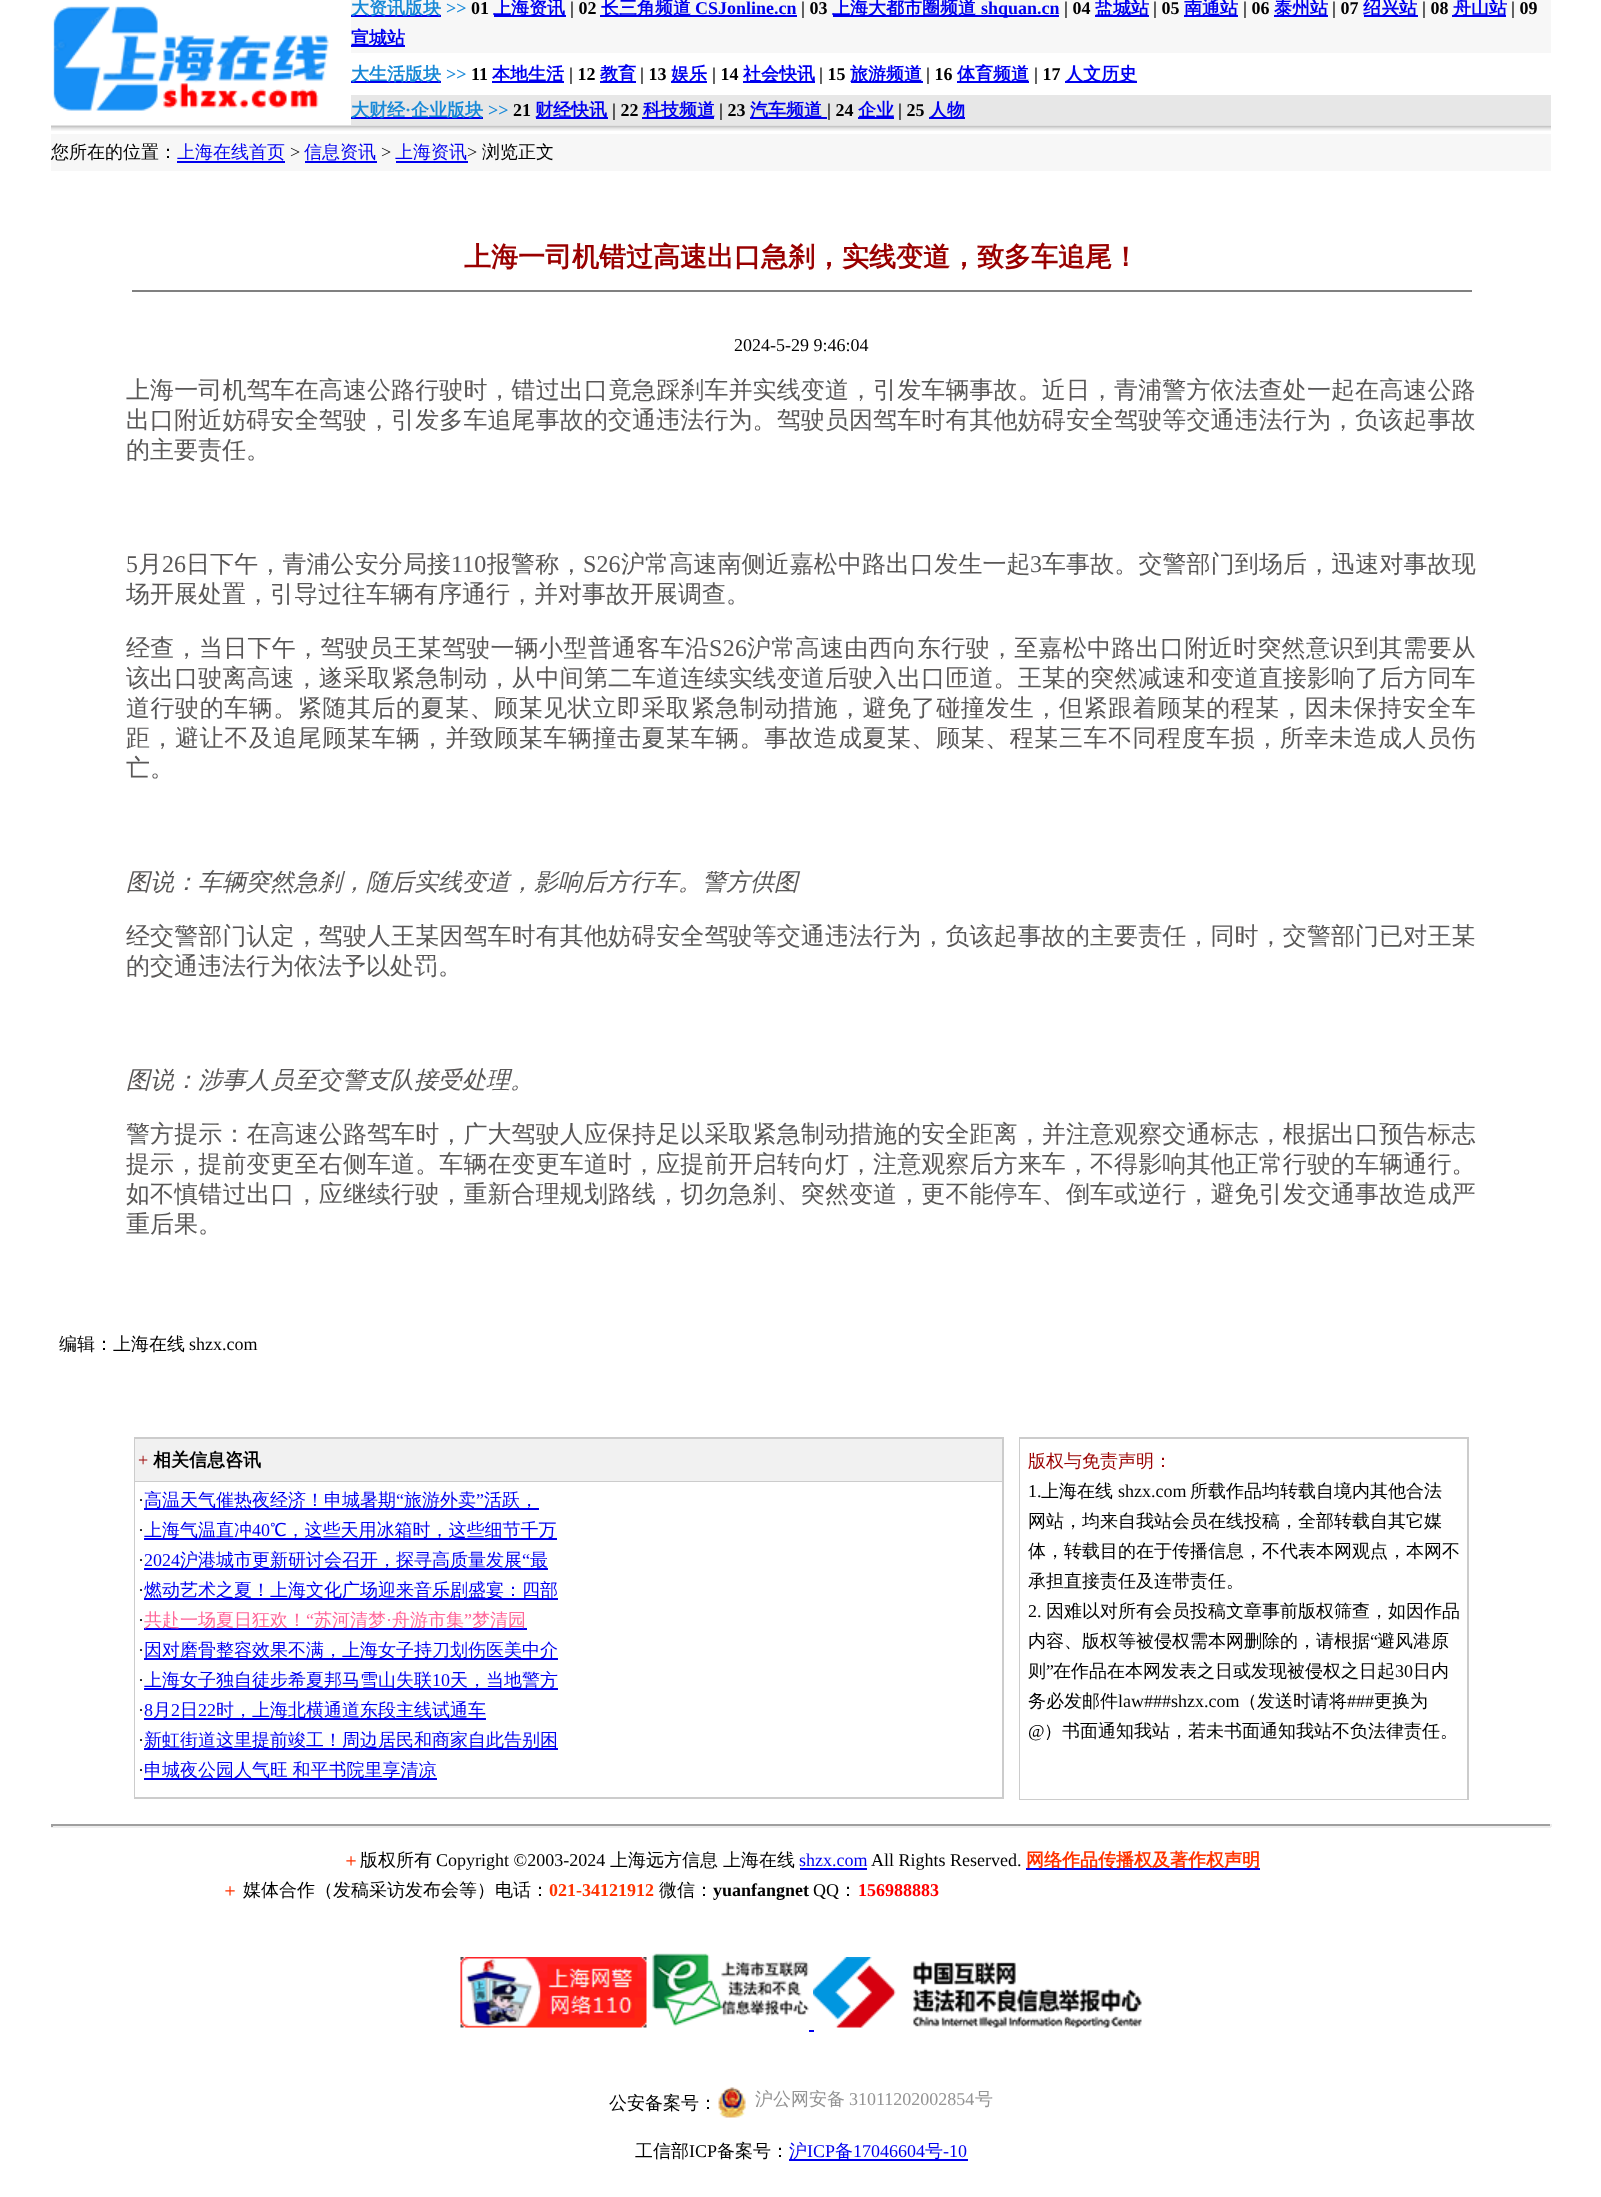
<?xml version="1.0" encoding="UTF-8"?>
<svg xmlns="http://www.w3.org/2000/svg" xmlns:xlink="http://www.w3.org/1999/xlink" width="1601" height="2197">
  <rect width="100%" height="100%" fill="#ffffff" />
  <image x="53" y="6" width="276" height="105" xlink:href="image1.png" />
  <rect x="351" width="1200" height="53" fill="#f7f7f7" />
  <rect x="351" y="15" width="90" height="2" fill="#0000ee" />
  <rect x="494" y="15" width="72" height="2" fill="#0000ee" />
  <rect x="600" y="15" width="197" height="2" fill="#0000ee" />
  <rect x="833" y="15" width="226" height="2" fill="#0000ee" />
  <rect x="1095" y="15" width="54" height="2" fill="#0000ee" />
  <rect x="1184" y="15" width="54" height="2" fill="#0000ee" />
  <rect x="1274" y="15" width="54" height="2" fill="#0000ee" />
  <rect x="1364" y="15" width="54" height="2" fill="#0000ee" />
  <rect x="1452" y="15" width="54" height="2" fill="#0000ee" />
  <rect x="351" y="45" width="54" height="2" fill="#0000ee" />
  <rect x="351" y="81" width="90" height="2" fill="#0000ee" />
  <rect x="492" y="81" width="72" height="2" fill="#0000ee" />
  <rect x="600" y="81" width="36" height="2" fill="#0000ee" />
  <rect x="671" y="81" width="36" height="2" fill="#0000ee" />
  <rect x="743" y="81" width="72" height="2" fill="#0000ee" />
  <rect x="851" y="81" width="72" height="2" fill="#0000ee" />
  <rect x="957" y="81" width="72" height="2" fill="#0000ee" />
  <rect x="1065" y="81" width="72" height="2" fill="#0000ee" />
  <rect x="351" y="95" width="1200" height="30" fill="#e7e7e7" />
  <rect x="351" y="117" width="132" height="2" fill="#0000ee" />
  <rect x="536" y="117" width="72" height="2" fill="#0000ee" />
  <rect x="642" y="117" width="72" height="2" fill="#0000ee" />
  <rect x="750" y="117" width="77" height="2" fill="#0000ee" />
  <rect x="858" y="117" width="36" height="2" fill="#0000ee" />
  <rect x="929" y="117" width="36" height="2" fill="#0000ee" />
  <image x="51" y="125" width="1500" height="6" xlink:href="image2.png" />
  <rect x="51" y="134" width="1500" height="37" fill="#f7f7f7" />
  <rect x="177" y="161" width="108" height="2" fill="#0000ee" />
  <rect x="305" y="161" width="72" height="2" fill="#0000ee" />
  <rect x="396" y="161" width="72" height="2" fill="#0000ee" />
  <rect x="132" y="290" width="1340" height="2" fill="#808080" />
  <rect x="134" y="1437" width="870" height="362" fill="#cccccc" />
  <rect x="135" y="1439" width="867" height="42" fill="#f1f1f1" />
  <rect x="135" y="1482" width="867" height="315" fill="#ffffff" />
  <rect x="144" y="1508" width="395" height="2" fill="#0000ee" />
  <rect x="144" y="1538" width="413" height="2" fill="#0000ee" />
  <rect x="144" y="1568" width="404" height="2" fill="#0000ee" />
  <rect x="144" y="1598" width="414" height="2" fill="#0000ee" />
  <rect x="144" y="1628" width="383" height="2" fill="#0000ee" />
  <rect x="144" y="1658" width="414" height="2" fill="#0000ee" />
  <rect x="144" y="1688" width="414" height="2" fill="#0000ee" />
  <rect x="144" y="1718" width="342" height="2" fill="#0000ee" />
  <rect x="144" y="1748" width="414" height="2" fill="#0000ee" />
  <rect x="144" y="1778" width="293" height="2" fill="#0000ee" />
  <rect x="1019" y="1437" width="450" height="363" fill="#cccccc" />
  <rect x="1020" y="1439" width="447" height="360" fill="#ffffff" />
  <rect x="51" y="1824" width="1500" height="2" fill="#9f9f9f" />
  <rect x="1550" y="1824" width="2" height="3" fill="#eeeeee" />
  <rect x="51" y="1826" width="1500" height="2" fill="#eeeeee" />
  <rect x="51" y="1824" width="2" height="3" fill="#9f9f9f" />
  <rect x="800" y="1868" width="67" height="2" fill="#0000ee" />
  <rect x="1026" y="1868" width="234" height="2" fill="#0000ee" />
  <image x="460" y="1957" width="187" height="71" xlink:href="image3.png" />
  <image x="652" y="1953" width="157" height="74" xlink:href="image4.png" />
  <image x="813" y="1957" width="329" height="71" xlink:href="image5.png" />
  <rect x="809" y="2030" width="5" height="2" fill="#0000ee" />
  <image x="718" y="2087" width="28" height="31" xlink:href="image6.png" />
  <rect x="789" y="2159" width="179" height="2" fill="#0000ee" />
  <text x="351" y="14" style="font-family: WenQuanYi Zen Hei; font-size: 18px; font-weight: bold; fill: #1989d7">大资讯版块</text>
  <text x="446" y="14" style="font-family: Liberation Serif; font-size: 18px; font-weight: bold; fill: #1989d7">&gt;&gt;</text>
  <text x="471" y="14" style="font-family: Liberation Serif; font-size: 18px; font-weight: bold; fill: #000000">01</text>
  <text x="493" y="14" style="font-family: WenQuanYi Zen Hei; font-size: 18px; font-weight: bold; fill: #0000ee">上海资讯</text>
  <text x="570" y="14" style="font-family: Liberation Serif; font-size: 18px; font-weight: bold; fill: #000000">| 02</text>
  <text x="601" y="14" style="font-family: WenQuanYi Zen Hei; font-size: 18px; font-weight: bold; fill: #0000ee">长三角频道</text>
  <text x="695" y="14" style="font-family: Liberation Serif; font-size: 18px; font-weight: bold; fill: #0000ee">CSJonline.cn</text>
  <text x="801" y="14" style="font-family: Liberation Serif; font-size: 18px; font-weight: bold; fill: #000000">| 03</text>
  <text x="832" y="14" style="font-family: WenQuanYi Zen Hei; font-size: 18px; font-weight: bold; fill: #0000ee">上海大都市圈频道</text>
  <text x="981" y="14" style="font-family: Liberation Serif; font-size: 18px; font-weight: bold; fill: #0000ee">shquan.cn</text>
  <text x="1064" y="14" style="font-family: Liberation Serif; font-size: 18px; font-weight: bold; fill: #000000">| 04</text>
  <text x="1095" y="14" style="font-family: WenQuanYi Zen Hei; font-size: 18px; font-weight: bold; fill: #0000ee">盐城站</text>
  <text x="1153" y="14" style="font-family: Liberation Serif; font-size: 18px; font-weight: bold; fill: #000000">| 05</text>
  <text x="1184" y="14" style="font-family: WenQuanYi Zen Hei; font-size: 18px; font-weight: bold; fill: #0000ee">南通站</text>
  <text x="1243" y="14" style="font-family: Liberation Serif; font-size: 18px; font-weight: bold; fill: #000000">| 06</text>
  <text x="1274" y="14" style="font-family: WenQuanYi Zen Hei; font-size: 18px; font-weight: bold; fill: #0000ee">泰州站</text>
  <text x="1332" y="14" style="font-family: Liberation Serif; font-size: 18px; font-weight: bold; fill: #000000">| 07</text>
  <text x="1363" y="14" style="font-family: WenQuanYi Zen Hei; font-size: 18px; font-weight: bold; fill: #0000ee">绍兴站</text>
  <text x="1422" y="14" style="font-family: Liberation Serif; font-size: 18px; font-weight: bold; fill: #000000">| 08</text>
  <text x="1453" y="14" style="font-family: WenQuanYi Zen Hei; font-size: 18px; font-weight: bold; fill: #0000ee">舟山站</text>
  <text x="1511" y="14" style="font-family: Liberation Serif; font-size: 18px; font-weight: bold; fill: #000000">| 09</text>
  <text x="351" y="44" style="font-family: WenQuanYi Zen Hei; font-size: 18px; font-weight: bold; fill: #0000ee">宣城站</text>
  <text x="351" y="80" style="font-family: WenQuanYi Zen Hei; font-size: 18px; font-weight: bold; fill: #1989d7">大生活版块</text>
  <text x="446" y="80" style="font-family: Liberation Serif; font-size: 18px; font-weight: bold; fill: #1989d7">&gt;&gt;</text>
  <text x="471" y="80" style="font-family: Liberation Serif; font-size: 18px; font-weight: bold; fill: #000000">11</text>
  <text x="492" y="80" style="font-family: WenQuanYi Zen Hei; font-size: 18px; font-weight: bold; fill: #0000ee">本地生活</text>
  <text x="569" y="80" style="font-family: Liberation Serif; font-size: 18px; font-weight: bold; fill: #000000">| 12</text>
  <text x="600" y="80" style="font-family: WenQuanYi Zen Hei; font-size: 18px; font-weight: bold; fill: #0000ee">教育</text>
  <text x="640" y="80" style="font-family: Liberation Serif; font-size: 18px; font-weight: bold; fill: #000000">| 13</text>
  <text x="671" y="80" style="font-family: WenQuanYi Zen Hei; font-size: 18px; font-weight: bold; fill: #0000ee">娱乐</text>
  <text x="712" y="80" style="font-family: Liberation Serif; font-size: 18px; font-weight: bold; fill: #000000">| 14</text>
  <text x="743" y="80" style="font-family: WenQuanYi Zen Hei; font-size: 18px; font-weight: bold; fill: #0000ee">社会快讯</text>
  <text x="819" y="80" style="font-family: Liberation Serif; font-size: 18px; font-weight: bold; fill: #000000">| 15</text>
  <text x="850" y="80" style="font-family: WenQuanYi Zen Hei; font-size: 18px; font-weight: bold; fill: #0000ee">旅游频道</text>
  <text x="926" y="80" style="font-family: Liberation Serif; font-size: 18px; font-weight: bold; fill: #000000">| 16</text>
  <text x="957" y="80" style="font-family: WenQuanYi Zen Hei; font-size: 18px; font-weight: bold; fill: #0000ee">体育频道</text>
  <text x="1034" y="80" style="font-family: Liberation Serif; font-size: 18px; font-weight: bold; fill: #000000">| 17</text>
  <text x="1065" y="80" style="font-family: WenQuanYi Zen Hei; font-size: 18px; font-weight: bold; fill: #0000ee">人文历史</text>
  <text x="351" y="116" style="font-family: WenQuanYi Zen Hei; font-size: 18px; font-weight: bold; fill: #1989d7">大财经</text>
  <text x="405" y="116" style="font-family: Liberation Serif; font-size: 18px; font-weight: bold; fill: #1989d7">·</text>
  <text x="411" y="116" style="font-family: WenQuanYi Zen Hei; font-size: 18px; font-weight: bold; fill: #1989d7">企业版块</text>
  <text x="488" y="116" style="font-family: Liberation Serif; font-size: 18px; font-weight: bold; fill: #1989d7">&gt;&gt;</text>
  <text x="513" y="116" style="font-family: Liberation Serif; font-size: 18px; font-weight: bold; fill: #000000">21</text>
  <text x="535" y="116" style="font-family: WenQuanYi Zen Hei; font-size: 18px; font-weight: bold; fill: #0000ee">财经快讯</text>
  <text x="612" y="116" style="font-family: Liberation Serif; font-size: 18px; font-weight: bold; fill: #000000">| 22</text>
  <text x="643" y="116" style="font-family: WenQuanYi Zen Hei; font-size: 18px; font-weight: bold; fill: #0000ee">科技频道</text>
  <text x="719" y="116" style="font-family: Liberation Serif; font-size: 18px; font-weight: bold; fill: #000000">| 23</text>
  <text x="750" y="116" style="font-family: WenQuanYi Zen Hei; font-size: 18px; font-weight: bold; fill: #0000ee">汽车频道</text>
  <text x="827" y="116" style="font-family: Liberation Serif; font-size: 18px; font-weight: bold; fill: #000000">| 24</text>
  <text x="858" y="116" style="font-family: WenQuanYi Zen Hei; font-size: 18px; font-weight: bold; fill: #0000ee">企业</text>
  <text x="898" y="116" style="font-family: Liberation Serif; font-size: 18px; font-weight: bold; fill: #000000">| 25</text>
  <text x="929" y="116" style="font-family: WenQuanYi Zen Hei; font-size: 18px; font-weight: bold; fill: #0000ee">人物</text>
  <text x="51" y="158" style="font-family: WenQuanYi Zen Hei; font-size: 18px; font-weight: 500; fill: #000000">您所在的位置：</text>
  <text x="177" y="158" style="font-family: WenQuanYi Zen Hei; font-size: 18px; font-weight: 500; fill: #0000ee">上海在线首页</text>
  <text x="290" y="158" style="font-family: Liberation Serif; font-size: 18px; fill: #000000">&gt;</text>
  <text x="304" y="158" style="font-family: WenQuanYi Zen Hei; font-size: 18px; font-weight: 500; fill: #0000ee">信息资讯</text>
  <text x="381" y="158" style="font-family: Liberation Serif; font-size: 18px; fill: #000000">&gt;</text>
  <text x="395" y="158" style="font-family: WenQuanYi Zen Hei; font-size: 18px; font-weight: 500; fill: #0000ee">上海资讯</text>
  <text x="467" y="158" style="font-family: Liberation Serif; font-size: 18px; fill: #000000">&gt;</text>
  <text x="482" y="158" style="font-family: WenQuanYi Zen Hei; font-size: 18px; font-weight: 500; fill: #000000">浏览正文</text>
  <text x="464" y="266" style="font-family: WenQuanYi Zen Hei; font-size: 27px; font-weight: bold; fill: #990000">上海一司机错过高速出口急刹，实线变道，致多车追尾！</text>
  <text x="734" y="351" style="font-family: Liberation Serif; font-size: 18px; fill: #000000">2024-5-29 9:46:04</text>
  <text x="126" y="398" style="font-family: WenQuanYi Zen Hei; font-size: 24px; font-weight: 500; letter-spacing: 0.1px; fill: #595757">上海一司机驾车在高速公路行驶时，错过出口竟急踩刹车并实线变道，引发车辆事故。近日，青浦警方依法查处一起在高速公路</text>
  <text x="126" y="428" style="font-family: WenQuanYi Zen Hei; font-size: 24px; font-weight: 500; letter-spacing: 0.1px; fill: #595757">出口附近妨碍安全驾驶，引发多车追尾事故的交通违法行为。驾驶员因驾车时有其他妨碍安全驾驶等交通违法行为，负该起事故</text>
  <text x="126" y="458" style="font-family: WenQuanYi Zen Hei; font-size: 24px; font-weight: 500; fill: #595757">的主要责任。</text>
  <text x="126" y="572" style="font-family: Liberation Serif; font-size: 24px; letter-spacing: 0.1px; fill: #595757">5</text>
  <text x="138" y="572" style="font-family: WenQuanYi Zen Hei; font-size: 24px; font-weight: 500; letter-spacing: 0.1px; fill: #595757">月</text>
  <text x="162" y="572" style="font-family: Liberation Serif; font-size: 24px; letter-spacing: 0.1px; fill: #595757">26</text>
  <text x="186" y="572" style="font-family: WenQuanYi Zen Hei; font-size: 24px; font-weight: 500; letter-spacing: 0.1px; fill: #595757">日下午，青浦公安分局接</text>
  <text x="451" y="572" style="font-family: Liberation Serif; font-size: 24px; letter-spacing: 0.1px; fill: #595757">110</text>
  <text x="487" y="572" style="font-family: WenQuanYi Zen Hei; font-size: 24px; font-weight: 500; letter-spacing: 0.1px; fill: #595757">报警称，</text>
  <text x="583" y="572" style="font-family: Liberation Serif; font-size: 24px; letter-spacing: 0.1px; fill: #595757">S26</text>
  <text x="621" y="572" style="font-family: WenQuanYi Zen Hei; font-size: 24px; font-weight: 500; letter-spacing: 0.1px; fill: #595757">沪常高速南侧近嘉松中路出口发生一起</text>
  <text x="1030" y="572" style="font-family: Liberation Serif; font-size: 24px; letter-spacing: 0.1px; fill: #595757">3</text>
  <text x="1042" y="572" style="font-family: WenQuanYi Zen Hei; font-size: 24px; font-weight: 500; letter-spacing: 0.1px; fill: #595757">车事故。交警部门到场后，迅速对事故现</text>
  <text x="126" y="602" style="font-family: WenQuanYi Zen Hei; font-size: 24px; font-weight: 500; fill: #595757">场开展处置，引导过往车辆有序通行，并对事故开展调查。</text>
  <text x="126" y="656" style="font-family: WenQuanYi Zen Hei; font-size: 24px; font-weight: 500; letter-spacing: 0.3px; fill: #595757">经查，当日下午，驾驶员王某驾驶一辆小型普通客车沿</text>
  <text x="709" y="656" style="font-family: Liberation Serif; font-size: 24px; letter-spacing: 0.3px; fill: #595757">S26</text>
  <text x="747" y="656" style="font-family: WenQuanYi Zen Hei; font-size: 24px; font-weight: 500; letter-spacing: 0.3px; fill: #595757">沪常高速由西向东行驶，至嘉松中路出口附近时突然意识到其需要从</text>
  <text x="126" y="686" style="font-family: WenQuanYi Zen Hei; font-size: 24px; font-weight: 500; letter-spacing: 0.1px; fill: #595757">该出口驶离高速，遂采取紧急制动，从中间第二车道连续实线变道后驶入出口匝道。王某的突然减速和变道直接影响了后方同车</text>
  <text x="126" y="716" style="font-family: WenQuanYi Zen Hei; font-size: 24px; font-weight: 500; letter-spacing: 0.55px; fill: #595757">道行驶的车辆。紧随其后的夏某、顾某见状立即采取紧急制动措施，避免了碰撞发生，但紧跟着顾某的程某，因未保持安全车</text>
  <text x="126" y="746" style="font-family: WenQuanYi Zen Hei; font-size: 24px; font-weight: 500; letter-spacing: 0.55px; fill: #595757">距，避让不及追尾顾某车辆，并致顾某车辆撞击夏某车辆。事故造成夏某、顾某、程某三车不同程度车损，所幸未造成人员伤</text>
  <text x="126" y="776" style="font-family: WenQuanYi Zen Hei; font-size: 24px; font-weight: 500; fill: #595757">亡。</text>
  <text x="126" y="890" style="font-family: WenQuanYi Zen Hei; font-size: 24px; font-weight: 500; font-style: italic; fill: #595757">图说：车辆突然急刹，随后实线变道，影响后方行车。警方供图</text>
  <text x="126" y="944" style="font-family: WenQuanYi Zen Hei; font-size: 24px; font-weight: 500; letter-spacing: 0.1px; fill: #595757">经交警部门认定，驾驶人王某因驾车时有其他妨碍安全驾驶等交通违法行为，负该起事故的主要责任，同时，交警部门已对王某</text>
  <text x="126" y="974" style="font-family: WenQuanYi Zen Hei; font-size: 24px; font-weight: 500; fill: #595757">的交通违法行为依法予以处罚。</text>
  <text x="126" y="1088" style="font-family: WenQuanYi Zen Hei; font-size: 24px; font-weight: 500; font-style: italic; fill: #595757">图说：涉事人员至交警支队接受处理。</text>
  <text x="126" y="1142" style="font-family: WenQuanYi Zen Hei; font-size: 24px; font-weight: 500; letter-spacing: 0.1px; fill: #595757">警方提示：在高速公路驾车时，广大驾驶人应保持足以采取紧急制动措施的安全距离，并注意观察交通标志，根据出口预告标志</text>
  <text x="126" y="1172" style="font-family: WenQuanYi Zen Hei; font-size: 24px; font-weight: 500; letter-spacing: 0.1px; fill: #595757">提示，提前变更至右侧车道。车辆在变更车道时，应提前开启转向灯，注意观察后方来车，不得影响其他正常行驶的车辆通行。</text>
  <text x="126" y="1202" style="font-family: WenQuanYi Zen Hei; font-size: 24px; font-weight: 500; letter-spacing: 0.1px; fill: #595757">如不慎错过出口，应继续行驶，重新合理规划路线，切勿急刹、突然变道，更不能停车、倒车或逆行，避免引发交通事故造成严</text>
  <text x="126" y="1232" style="font-family: WenQuanYi Zen Hei; font-size: 24px; font-weight: 500; fill: #595757">重后果。</text>
  <text x="59" y="1350" style="font-family: WenQuanYi Zen Hei; font-size: 18px; font-weight: 500; fill: #000000">编辑：上海在线</text>
  <text x="189" y="1350" style="font-family: Liberation Serif; font-size: 18px; fill: #000000">shzx.com</text>
  <text x="138" y="1466" style="font-family: Liberation Serif; font-size: 18px; fill: #990000">+</text>
  <text x="153" y="1466" style="font-family: WenQuanYi Zen Hei; font-size: 18px; font-weight: bold; fill: #000000">相关信息咨讯</text>
  <text x="144" y="1506" style="font-family: WenQuanYi Zen Hei; font-size: 18px; font-weight: 500; fill: #0000ee">高温天气催热夜经济！申城暑期</text>
  <text x="396" y="1506" style="font-family: Liberation Serif; font-size: 18px; fill: #0000ee">“</text>
  <text x="404" y="1506" style="font-family: WenQuanYi Zen Hei; font-size: 18px; font-weight: 500; fill: #0000ee">旅游外卖</text>
  <text x="476" y="1506" style="font-family: Liberation Serif; font-size: 18px; fill: #0000ee">”</text>
  <text x="484" y="1506" style="font-family: WenQuanYi Zen Hei; font-size: 18px; font-weight: 500; fill: #0000ee">活跃，</text>
  <text x="138" y="1506" style="font-family: Liberation Serif; font-size: 18px; fill: #000000">·</text>
  <text x="138" y="1536" style="font-family: Liberation Serif; font-size: 18px; fill: #000000">·</text>
  <text x="144" y="1536" style="font-family: WenQuanYi Zen Hei; font-size: 18px; font-weight: 500; fill: #0000ee">上海气温直冲</text>
  <text x="252" y="1536" style="font-family: Liberation Serif; font-size: 18px; fill: #0000ee">40</text>
  <text x="270" y="1536" style="font-family: WenQuanYi Zen Hei; font-size: 18px; font-weight: 500; fill: #0000ee">℃，这些天用冰箱时，这些细节千万</text>
  <text x="144" y="1566" style="font-family: Liberation Serif; font-size: 18px; fill: #0000ee">2024</text>
  <text x="180" y="1566" style="font-family: WenQuanYi Zen Hei; font-size: 18px; font-weight: 500; fill: #0000ee">沪港城市更新研讨会召开，探寻高质量发展</text>
  <text x="522" y="1566" style="font-family: Liberation Serif; font-size: 18px; fill: #0000ee">“</text>
  <text x="530" y="1566" style="font-family: WenQuanYi Zen Hei; font-size: 18px; font-weight: 500; fill: #0000ee">最</text>
  <text x="138" y="1566" style="font-family: Liberation Serif; font-size: 18px; fill: #000000">·</text>
  <text x="138" y="1596" style="font-family: Liberation Serif; font-size: 18px; fill: #000000">·</text>
  <text x="144" y="1596" style="font-family: WenQuanYi Zen Hei; font-size: 18px; font-weight: 500; fill: #0000ee">燃动艺术之夏！上海文化广场迎来音乐剧盛宴：四部</text>
  <text x="144" y="1626" style="font-family: WenQuanYi Zen Hei; font-size: 18px; font-weight: 500; fill: #ff6699">共赴一场夏日狂欢！</text>
  <text x="306" y="1626" style="font-family: Liberation Serif; font-size: 18px; fill: #ff6699">“</text>
  <text x="314" y="1626" style="font-family: WenQuanYi Zen Hei; font-size: 18px; font-weight: 500; fill: #ff6699">苏河清梦</text>
  <text x="392" y="1626" style="font-family: WenQuanYi Zen Hei; font-size: 18px; font-weight: 500; fill: #ff6699">舟游市集</text>
  <text x="464" y="1626" style="font-family: Liberation Serif; font-size: 18px; fill: #ff6699">”</text>
  <text x="472" y="1626" style="font-family: WenQuanYi Zen Hei; font-size: 18px; font-weight: 500; fill: #ff6699">梦清园</text>
  <text x="138" y="1626" style="font-family: Liberation Serif; font-size: 18px; fill: #000000">·</text>
  <text x="386" y="1626" style="font-family: Liberation Serif; font-size: 18px; fill: #ff6699">·</text>
  <text x="138" y="1656" style="font-family: Liberation Serif; font-size: 18px; fill: #000000">·</text>
  <text x="144" y="1656" style="font-family: WenQuanYi Zen Hei; font-size: 18px; font-weight: 500; fill: #0000ee">因对磨骨整容效果不满，上海女子持刀划伤医美中介</text>
  <text x="138" y="1686" style="font-family: Liberation Serif; font-size: 18px; fill: #000000">·</text>
  <text x="144" y="1686" style="font-family: WenQuanYi Zen Hei; font-size: 18px; font-weight: 500; fill: #0000ee">上海女子独自徒步希夏邦马雪山失联</text>
  <text x="432" y="1686" style="font-family: Liberation Serif; font-size: 18px; fill: #0000ee">10</text>
  <text x="450" y="1686" style="font-family: WenQuanYi Zen Hei; font-size: 18px; font-weight: 500; fill: #0000ee">天，当地警方</text>
  <text x="138" y="1716" style="font-family: Liberation Serif; font-size: 18px; fill: #000000">·</text>
  <text x="144" y="1716" style="font-family: Liberation Serif; font-size: 18px; fill: #0000ee">8</text>
  <text x="153" y="1716" style="font-family: WenQuanYi Zen Hei; font-size: 18px; font-weight: 500; fill: #0000ee">月</text>
  <text x="171" y="1716" style="font-family: Liberation Serif; font-size: 18px; fill: #0000ee">2</text>
  <text x="180" y="1716" style="font-family: WenQuanYi Zen Hei; font-size: 18px; font-weight: 500; fill: #0000ee">日</text>
  <text x="198" y="1716" style="font-family: Liberation Serif; font-size: 18px; fill: #0000ee">22</text>
  <text x="216" y="1716" style="font-family: WenQuanYi Zen Hei; font-size: 18px; font-weight: 500; fill: #0000ee">时，上海北横通道东段主线试通车</text>
  <text x="138" y="1746" style="font-family: Liberation Serif; font-size: 18px; fill: #000000">·</text>
  <text x="144" y="1746" style="font-family: WenQuanYi Zen Hei; font-size: 18px; font-weight: 500; fill: #0000ee">新虹街道这里提前竣工！周边居民和商家自此告别困</text>
  <text x="138" y="1776" style="font-family: Liberation Serif; font-size: 18px; fill: #000000">·</text>
  <text x="144" y="1776" word-spacing="-1" style="font-family: WenQuanYi Zen Hei; font-size: 18px; font-weight: 500; fill: #0000ee">申城夜公园人气旺 和平书院里享清凉</text>
  <text x="1028" y="1467" style="font-family: WenQuanYi Zen Hei; font-size: 18px; font-weight: 500; fill: #990000">版权与免责声明：</text>
  <text x="1028" y="1497" style="font-family: Liberation Serif; font-size: 18px; fill: #000000">1.</text>
  <text x="1041" y="1497" style="font-family: WenQuanYi Zen Hei; font-size: 18px; font-weight: 500; fill: #000000">上海在线</text>
  <text x="1118" y="1497" style="font-family: Liberation Serif; font-size: 18px; fill: #000000">shzx.com</text>
  <text x="1190" y="1497" style="font-family: WenQuanYi Zen Hei; font-size: 18px; font-weight: 500; fill: #000000">所载作品均转载自境内其他合法</text>
  <text x="1028" y="1527" style="font-family: WenQuanYi Zen Hei; font-size: 18px; font-weight: 500; fill: #000000">网站，均来自我站会员在线投稿，全部转载自其它媒</text>
  <text x="1028" y="1557" style="font-family: WenQuanYi Zen Hei; font-size: 18px; font-weight: 500; fill: #000000">体，转载目的在于传播信息，不代表本网观点，本网不</text>
  <text x="1028" y="1587" style="font-family: WenQuanYi Zen Hei; font-size: 18px; font-weight: 500; fill: #000000">承担直接责任及连带责任。</text>
  <text x="1028" y="1617" style="font-family: Liberation Serif; font-size: 18px; fill: #000000">2.</text>
  <text x="1046" y="1617" style="font-family: WenQuanYi Zen Hei; font-size: 18px; font-weight: 500; fill: #000000">因难以对所有会员投稿文章事前版权筛查，如因作品</text>
  <text x="1028" y="1647" style="font-family: WenQuanYi Zen Hei; font-size: 18px; font-weight: 500; fill: #000000">内容、版权等被侵权需本网删除的，请根据</text>
  <text x="1370" y="1647" style="font-family: Liberation Serif; font-size: 18px; fill: #000000">“</text>
  <text x="1377" y="1647" style="font-family: WenQuanYi Zen Hei; font-size: 18px; font-weight: 500; fill: #000000">避风港原</text>
  <text x="1028" y="1677" style="font-family: WenQuanYi Zen Hei; font-size: 18px; font-weight: 500; fill: #000000">则</text>
  <text x="1046" y="1677" style="font-family: Liberation Serif; font-size: 18px; fill: #000000">”</text>
  <text x="1053" y="1677" style="font-family: WenQuanYi Zen Hei; font-size: 18px; font-weight: 500; fill: #000000">在作品在本网发表之日或发现被侵权之日起</text>
  <text x="1395" y="1677" style="font-family: Liberation Serif; font-size: 18px; fill: #000000">30</text>
  <text x="1413" y="1677" style="font-family: WenQuanYi Zen Hei; font-size: 18px; font-weight: 500; fill: #000000">日内</text>
  <text x="1028" y="1707" style="font-family: WenQuanYi Zen Hei; font-size: 18px; font-weight: 500; fill: #000000">务必发邮件</text>
  <text x="1118" y="1707" style="font-family: Liberation Serif; font-size: 18px; fill: #000000">law###shzx.com</text>
  <text x="1239" y="1707" style="font-family: WenQuanYi Zen Hei; font-size: 18px; font-weight: 500; fill: #000000">（发送时请将</text>
  <text x="1347" y="1707" style="font-family: Liberation Serif; font-size: 18px; fill: #000000">###</text>
  <text x="1374" y="1707" style="font-family: WenQuanYi Zen Hei; font-size: 18px; font-weight: 500; fill: #000000">更换为</text>
  <text x="1028" y="1737" style="font-family: Liberation Serif; font-size: 18px; fill: #000000">@</text>
  <text x="1044" y="1737" style="font-family: WenQuanYi Zen Hei; font-size: 18px; font-weight: 500; fill: #000000">）书面通知我站，若未书面通知我站不负法律责任。</text>
  <text x="342" y="1866" style="font-family: WenQuanYi Zen Hei; font-size: 18px; font-weight: 500; fill: #ff3300">＋</text>
  <text x="360" y="1866" style="font-family: WenQuanYi Zen Hei; font-size: 18px; font-weight: 500; fill: #000000">版权所有</text>
  <text x="436" y="1866" style="font-family: Liberation Serif; font-size: 18px; fill: #000000">Copyright ©2003-2024</text>
  <text x="610" y="1866" style="font-family: WenQuanYi Zen Hei; font-size: 18px; font-weight: 500; fill: #000000">上海远方信息</text>
  <text x="723" y="1866" style="font-family: WenQuanYi Zen Hei; font-size: 18px; font-weight: 500; fill: #000000">上海在线</text>
  <text x="799" y="1866" style="font-family: Liberation Serif; font-size: 18px; fill: #0000ee">shzx.com</text>
  <text x="871" y="1866" style="font-family: Liberation Serif; font-size: 18px; fill: #000000">All Rights Reserved.</text>
  <text x="1026" y="1866" style="font-family: WenQuanYi Zen Hei; font-size: 18px; font-weight: bold; fill: #ff3300">网络作品传播权及著作权声明</text>
  <text x="221" y="1896" style="font-family: WenQuanYi Zen Hei; font-size: 18px; font-weight: 500; fill: #ff3300">＋</text>
  <text x="243" y="1896" style="font-family: WenQuanYi Zen Hei; font-size: 18px; font-weight: 500; fill: #000000">媒体合作（发稿采访发布会等）电话：</text>
  <text x="549" y="1896" style="font-family: Liberation Serif; font-size: 18px; font-weight: bold; fill: #ff3300">021-34121912</text>
  <text x="659" y="1896" style="font-family: WenQuanYi Zen Hei; font-size: 18px; font-weight: 500; fill: #000000">微信：</text>
  <text x="713" y="1896" style="font-family: Liberation Serif; font-size: 18px; font-weight: bold; fill: #000000">yuanfangnet</text>
  <text x="813" y="1896" style="font-family: Liberation Serif; font-size: 18px; fill: #000000">QQ</text>
  <text x="839" y="1896" style="font-family: WenQuanYi Zen Hei; font-size: 18px; font-weight: 500; fill: #000000">：</text>
  <text x="858" y="1896" style="font-family: Liberation Serif; font-size: 18px; font-weight: bold; fill: #ff0000">156988883</text>
  <text x="609" y="2109" style="font-family: WenQuanYi Zen Hei; font-size: 18px; font-weight: 500; fill: #000000">公安备案号：</text>
  <text x="755" y="2105" style="font-family: WenQuanYi Zen Hei; font-size: 18px; font-weight: 500; fill: #939393">沪公网安备</text>
  <text x="849" y="2105" style="font-family: Liberation Serif; font-size: 18px; fill: #939393">31011202002854</text>
  <text x="975" y="2105" style="font-family: WenQuanYi Zen Hei; font-size: 18px; font-weight: 500; fill: #939393">号</text>
  <text x="635" y="2157" style="font-family: WenQuanYi Zen Hei; font-size: 18px; font-weight: 500; fill: #000000">工信部</text>
  <text x="689" y="2157" style="font-family: Liberation Serif; font-size: 18px; fill: #000000">ICP</text>
  <text x="717" y="2157" style="font-family: WenQuanYi Zen Hei; font-size: 18px; font-weight: 500; fill: #000000">备案号：</text>
  <text x="789" y="2157" style="font-family: WenQuanYi Zen Hei; font-size: 18px; font-weight: 500; fill: #0000ee">沪</text>
  <text x="807" y="2157" style="font-family: Liberation Serif; font-size: 18px; fill: #0000ee">ICP</text>
  <text x="835" y="2157" style="font-family: WenQuanYi Zen Hei; font-size: 18px; font-weight: 500; fill: #0000ee">备</text>
  <text x="853" y="2157" style="font-family: Liberation Serif; font-size: 18px; fill: #0000ee">17046604</text>
  <text x="925" y="2157" style="font-family: WenQuanYi Zen Hei; font-size: 18px; font-weight: 500; fill: #0000ee">号</text>
  <text x="943" y="2157" style="font-family: Liberation Serif; font-size: 18px; fill: #0000ee">-10</text>
</svg>
